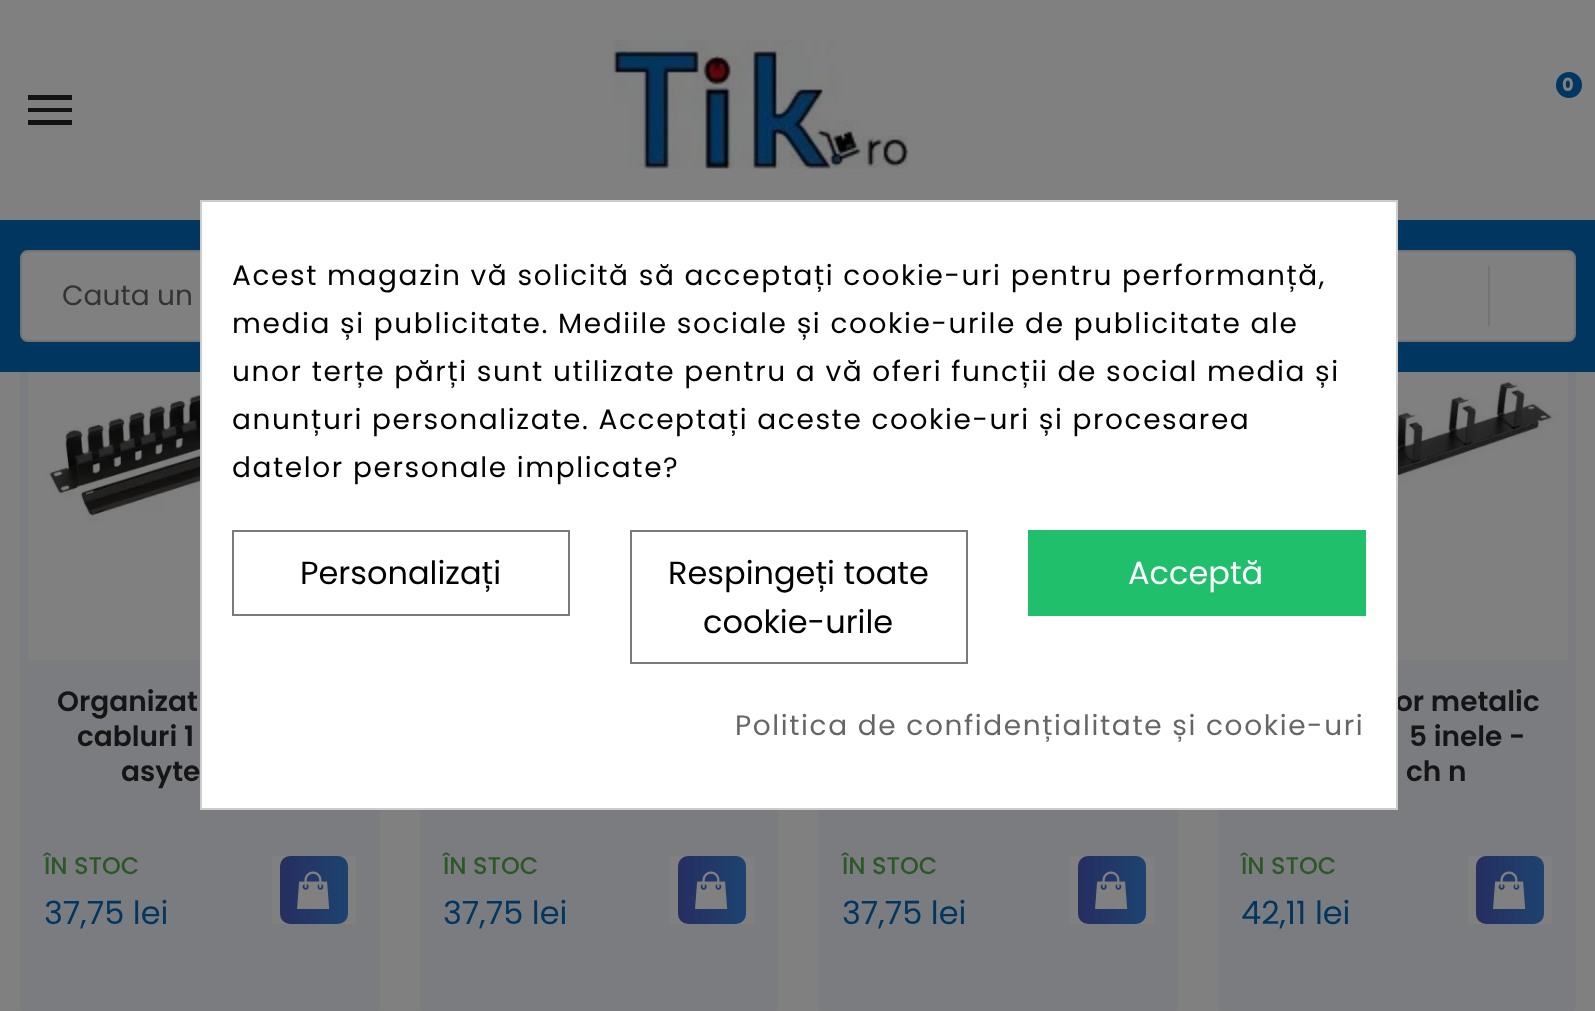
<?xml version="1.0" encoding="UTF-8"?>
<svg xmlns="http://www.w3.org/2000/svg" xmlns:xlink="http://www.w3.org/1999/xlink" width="1595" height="1011">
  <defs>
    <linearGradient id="g1" gradientUnits="userSpaceOnUse" x1="280" y1="890" x2="348" y2="890"><stop offset="0.1" stop-color="#253061" /><stop offset="1" stop-color="#1d4370" /></linearGradient>
    <linearGradient id="g2" gradientUnits="userSpaceOnUse" x1="678" y1="890" x2="746" y2="890"><stop offset="0.1" stop-color="#253061" /><stop offset="1" stop-color="#1d4370" /></linearGradient>
    <linearGradient id="g3" gradientUnits="userSpaceOnUse" x1="1078" y1="890" x2="1146" y2="890"><stop offset="0.1" stop-color="#253061" /><stop offset="1" stop-color="#1d4370" /></linearGradient>
    <linearGradient id="g4" gradientUnits="userSpaceOnUse" x1="1476" y1="890" x2="1544" y2="890"><stop offset="0.1" stop-color="#253061" /><stop offset="1" stop-color="#1d4370" /></linearGradient>
  </defs>
  <rect width="100%" height="100%" fill="#808080" />
  <rect x="20" y="208" width="360" height="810" rx="14" fill="#7b7c80" />
  <rect x="420" y="208" width="358" height="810" rx="14" fill="#7b7c80" />
  <rect x="818" y="208" width="360" height="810" rx="14" fill="#7b7c80" />
  <rect x="1218" y="208" width="358" height="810" rx="14" fill="#7b7c80" />
  <rect x="20" y="208" width="1556" height="12" fill="#808080" />
  <image x="613" y="40" width="295" height="129" xlink:href="image1.png" />
  <circle cx="1569" cy="85" r="13" fill="#00365f" />
  <path d="M 28 125 h 44 v -5 h -44 z m 0 -13 h 44 v -4 h -44 z m 0 -17 v 5 h 44 v -5 z" fill="#121212" />
  <rect y="220" width="1595" height="152" fill="#00365f" />
  <rect x="21" y="251" width="1554" height="90" rx="7" fill="#808080" stroke="#737373" stroke-width="2" />
  <rect x="1488" y="266" width="2" height="60" fill="#737373" />
  <image x="28" y="372" width="172" height="288" xlink:href="image2.png" />
  <rect x="272" y="856" width="84" height="68" fill="#808080" />
  <rect x="280" y="856" width="68" height="68" rx="10" fill="url(#g1)" />
  <image x="297" y="871" width="33" height="38" xlink:href="image3.png" />
  <rect x="670" y="856" width="84" height="68" fill="#808080" />
  <rect x="678" y="856" width="68" height="68" rx="10" fill="url(#g2)" />
  <image x="695" y="871" width="33" height="38" xlink:href="image3.png" />
  <rect x="1070" y="856" width="84" height="68" fill="#808080" />
  <rect x="1078" y="856" width="68" height="68" rx="10" fill="url(#g3)" />
  <image x="1095" y="871" width="33" height="38" xlink:href="image3.png" />
  <image x="1398" y="372" width="170" height="288" xlink:href="image4.png" />
  <rect x="1468" y="856" width="84" height="68" fill="#808080" />
  <rect x="1476" y="856" width="68" height="68" rx="10" fill="url(#g4)" />
  <image x="1493" y="871" width="33" height="38" xlink:href="image3.png" />
  <text x="1562" y="91" style="font-family: Poppins; font-size: 18px; font-weight: bold; letter-spacing: 1.6px; fill: #808080">0</text>
  <text x="62" y="305" style="font-family: Poppins; font-size: 28px; fill: #333333">Cauta un</text>
  <text x="57" y="711" style="font-family: Poppins; font-size: 28px; font-weight: 600; fill: #151515">Organizat</text>
  <text x="77" y="746" style="font-family: Poppins; font-size: 28px; font-weight: 600; fill: #151515">cabluri 1</text>
  <text x="121" y="781" style="font-family: Poppins; font-size: 28px; font-weight: 600; fill: #151515">asyte</text>
  <text x="44" y="874" style="font-family: Poppins; font-size: 24px; font-weight: 500; fill: #2b5826">ÎN STOC</text>
  <text x="44" y="924" style="font-family: Poppins; font-size: 32px; fill: #00365f">37,75 lei</text>
  <text x="443" y="874" style="font-family: Poppins; font-size: 24px; font-weight: 500; fill: #2b5826">ÎN STOC</text>
  <text x="443" y="924" style="font-family: Poppins; font-size: 32px; fill: #00365f">37,75 lei</text>
  <text x="842" y="874" style="font-family: Poppins; font-size: 24px; font-weight: 500; fill: #2b5826">ÎN STOC</text>
  <text x="842" y="924" style="font-family: Poppins; font-size: 32px; fill: #00365f">37,75 lei</text>
  <text x="1395" y="711" style="font-family: Poppins; font-size: 28px; font-weight: 600; fill: #151515">or metalic</text>
  <text x="1409" y="746" style="font-family: Poppins; font-size: 28px; font-weight: 600; fill: #151515">5 inele -</text>
  <text x="1406" y="781" style="font-family: Poppins; font-size: 28px; font-weight: 600; fill: #151515">ch n</text>
  <text x="1241" y="874" style="font-family: Poppins; font-size: 24px; font-weight: 500; fill: #2b5826">ÎN STOC</text>
  <text x="1241" y="924" style="font-family: Poppins; font-size: 32px; fill: #00365f">42,11 lei</text>
  <rect x="201" y="201" width="1196" height="608" fill="#ffffff" stroke="#cccccc" stroke-width="2" />
  <text x="232" y="285" style="font-family: Poppins; font-size: 28px; letter-spacing: 1.6px; fill: #000000">Acest magazin vă solicită să acceptați cookie-uri pentru performanță,</text>
  <text x="232" y="333" style="font-family: Poppins; font-size: 28px; letter-spacing: 1.6px; fill: #000000">media și publicitate. Mediile sociale și cookie-urile de publicitate ale</text>
  <text x="232" y="381" style="font-family: Poppins; font-size: 28px; letter-spacing: 1.6px; fill: #000000">unor terțe părți sunt utilizate pentru a vă oferi funcții de social media și</text>
  <text x="232" y="429" style="font-family: Poppins; font-size: 28px; letter-spacing: 1.6px; fill: #000000">anunțuri personalizate. Acceptați aceste cookie-uri și procesarea</text>
  <text x="232" y="477" style="font-family: Poppins; font-size: 28px; letter-spacing: 1.6px; fill: #000000">datelor personale implicate?</text>
  <rect x="233" y="531" width="336" height="84" fill="none" stroke="#7a7a7a" stroke-width="2" />
  <text x="300" y="584" style="font-family: Poppins; font-size: 32px; fill: #000000">Personalizați</text>
  <rect x="631" y="531" width="336" height="132" fill="none" stroke="#7a7a7a" stroke-width="2" />
  <text x="668" y="584" style="font-family: Poppins; font-size: 32px; fill: #000000">Respingeți toate</text>
  <text x="703" y="633" style="font-family: Poppins; font-size: 32px; fill: #000000">cookie-urile</text>
  <rect x="1028" y="530" width="338" height="86" fill="#20bf6b" />
  <text x="1128" y="584" style="font-family: Poppins; font-size: 32px; fill: #ffffff">Acceptă</text>
  <text x="735" y="735" style="font-family: Poppins; font-size: 28px; letter-spacing: 1.6px; fill: #666666">Politica de confidențialitate și cookie-uri</text>
</svg>
